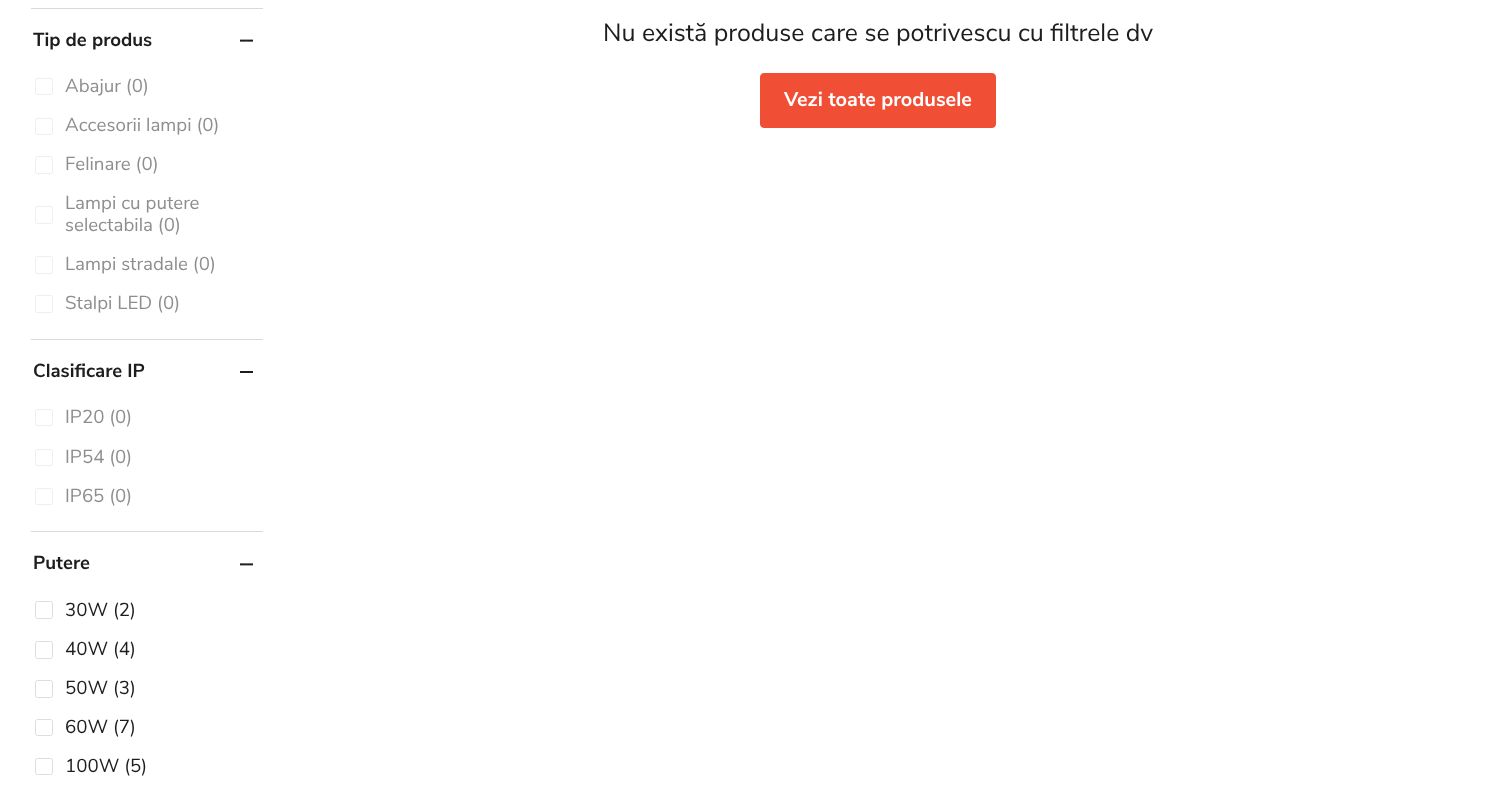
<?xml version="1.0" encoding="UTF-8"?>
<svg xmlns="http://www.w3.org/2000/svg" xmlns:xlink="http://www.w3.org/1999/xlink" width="1493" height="791">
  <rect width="100%" height="100%" fill="#ffffff" />
  <rect x="31" y="8" width="232" height="1" fill="#d9d9d9" />
  <image x="240" y="39" width="13" height="3" xlink:href="image1.png" />
  <rect x="35.5" y="78.5" width="17" height="16" rx="2" fill="none" stroke="#eeeeee" />
  <rect x="35.5" y="118.5" width="17" height="16" rx="2" fill="none" stroke="#eeeeee" />
  <rect x="35.5" y="156.5" width="17" height="17" rx="2" fill="none" stroke="#eeeeee" />
  <rect x="35.5" y="206.5" width="17" height="17" rx="2" fill="none" stroke="#eeeeee" />
  <rect x="35.5" y="256.5" width="17" height="17" rx="2" fill="none" stroke="#eeeeee" />
  <rect x="35.5" y="295.5" width="17" height="17" rx="2" fill="none" stroke="#eeeeee" />
  <rect x="31" y="339" width="232" height="1" fill="#d9d9d9" />
  <rect x="240" y="371" width="13" height="2" fill="#1d1d1d" />
  <rect x="35.5" y="409.5" width="17" height="16" rx="2" fill="none" stroke="#eeeeee" />
  <rect x="35.5" y="449.5" width="17" height="16" rx="2" fill="none" stroke="#eeeeee" />
  <rect x="35.5" y="488.5" width="17" height="16" rx="2" fill="none" stroke="#eeeeee" />
  <rect x="31" y="531" width="232" height="1" fill="#d9d9d9" />
  <image x="240" y="563" width="13" height="3" xlink:href="image2.png" />
  <rect x="35.5" y="601.5" width="17" height="17" rx="2" fill="none" stroke="#dddddd" />
  <rect x="35.5" y="641.5" width="17" height="17" rx="2" fill="none" stroke="#dddddd" />
  <rect x="35.5" y="680.5" width="17" height="17" rx="2" fill="none" stroke="#dddddd" />
  <rect x="35.5" y="719.5" width="17" height="16" rx="2" fill="none" stroke="#dddddd" />
  <rect x="35.5" y="758.5" width="17" height="16" rx="2" fill="none" stroke="#dddddd" />
  <rect x="760.5" y="73.5" width="235" height="54" rx="3.5" fill="#f04f36" stroke="#f04f36" />
  <text x="33" y="46" style="font-family: Nunito Sans; font-size: 18.75px; font-weight: bold; fill: #1d1d1d">Tip de produs</text>
  <text x="65" y="92" style="font-family: Nunito Sans; font-size: 18.75px; fill: #8e8e8e">Abajur (0)</text>
  <text x="65" y="131" style="font-family: Nunito Sans; font-size: 18.75px; fill: #8e8e8e">Accesorii lampi (0)</text>
  <text x="65" y="170" style="font-family: Nunito Sans; font-size: 18.75px; fill: #8e8e8e">Felinare (0)</text>
  <text x="65" y="209" style="font-family: Nunito Sans; font-size: 18.75px; fill: #8e8e8e">Lampi cu putere</text>
  <text x="65" y="231" style="font-family: Nunito Sans; font-size: 18.75px; fill: #8e8e8e">selectabila (0)</text>
  <text x="65" y="270" style="font-family: Nunito Sans; font-size: 18.75px; fill: #8e8e8e">Lampi stradale (0)</text>
  <text x="65" y="309" style="font-family: Nunito Sans; font-size: 18.75px; fill: #8e8e8e">Stalpi LED (0)</text>
  <text x="33" y="377" style="font-family: Nunito Sans; font-size: 18.75px; font-weight: bold; fill: #1d1d1d">Clasificare IP</text>
  <text x="65" y="423" style="font-family: Nunito Sans; font-size: 18.75px; fill: #8e8e8e">IP20 (0)</text>
  <text x="65" y="463" style="font-family: Nunito Sans; font-size: 18.75px; fill: #8e8e8e">IP54 (0)</text>
  <text x="65" y="502" style="font-family: Nunito Sans; font-size: 18.75px; fill: #8e8e8e">IP65 (0)</text>
  <text x="33" y="569" style="font-family: Nunito Sans; font-size: 18.75px; font-weight: bold; fill: #1d1d1d">Putere</text>
  <text x="65" y="616" style="font-family: Nunito Sans; font-size: 18.75px; fill: #1d1d1d">30W (2)</text>
  <text x="65" y="655" style="font-family: Nunito Sans; font-size: 18.75px; fill: #1d1d1d">40W (4)</text>
  <text x="65" y="694" style="font-family: Nunito Sans; font-size: 18.75px; fill: #1d1d1d">50W (3)</text>
  <text x="65" y="733" style="font-family: Nunito Sans; font-size: 18.75px; fill: #1d1d1d">60W (7)</text>
  <text x="65" y="772" style="font-family: Nunito Sans; font-size: 18.75px; fill: #1d1d1d">100W (5)</text>
  <text x="603" y="41" style="font-family: Nunito Sans; font-size: 25px; fill: #1d1d1d">Nu există produse care se potrivescu cu filtrele dv</text>
  <text x="784" y="106" style="font-family: Nunito Sans; font-size: 20px; font-weight: bold; fill: #ffffff">Vezi toate produsele</text>
</svg>
